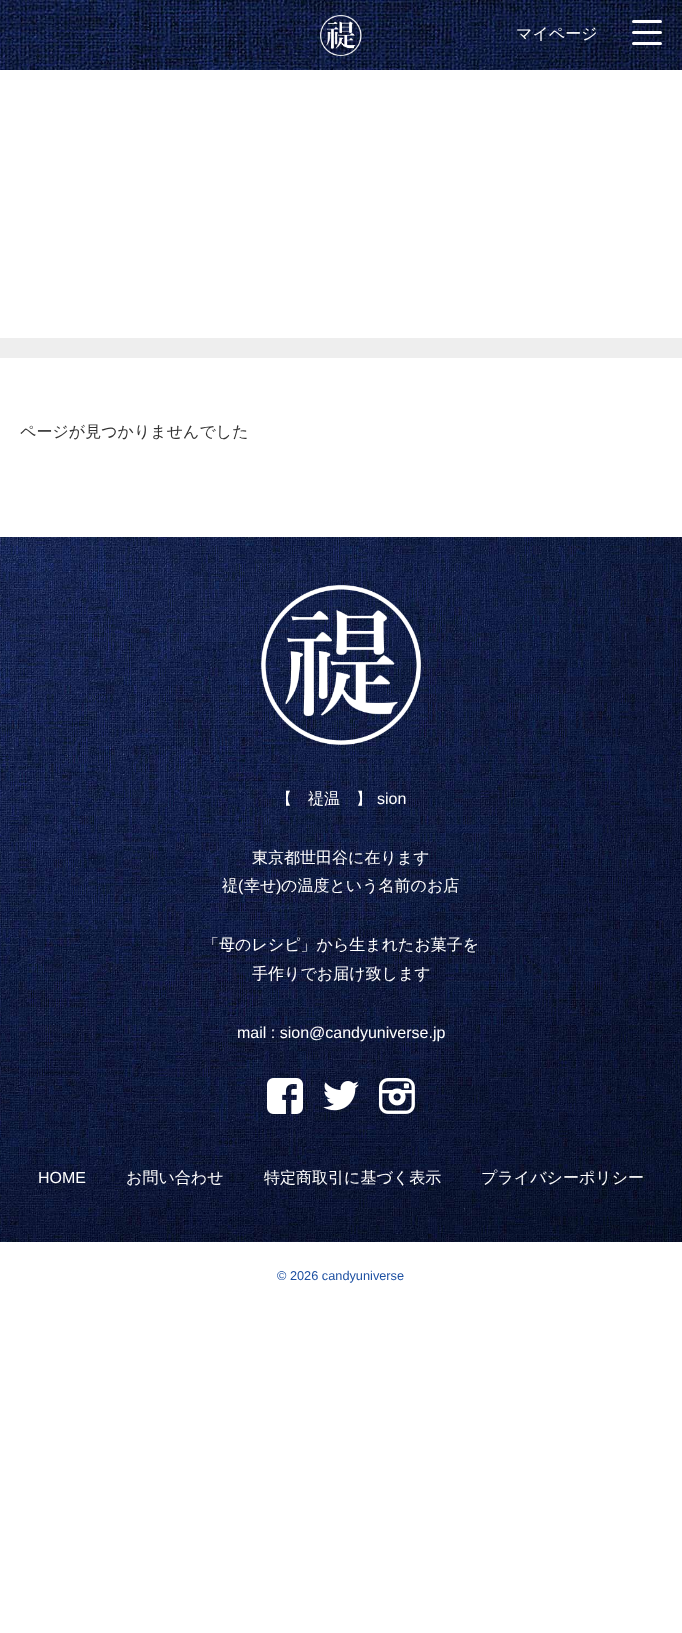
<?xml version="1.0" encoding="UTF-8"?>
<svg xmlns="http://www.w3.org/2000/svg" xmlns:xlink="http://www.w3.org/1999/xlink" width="682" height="1633">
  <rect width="100%" height="100%" fill="#ffffff" />
  <image x="0" y="0" width="682" height="70" xlink:href="image1.png" />
  <image x="320" y="15" width="45" height="48" xlink:href="image2.png" />
  <rect x="632" y="20" width="30" height="3" rx="1.5" fill="#ffffff" />
  <rect x="632" y="31" width="30" height="3" rx="1.5" fill="#ffffff" />
  <rect x="632" y="42" width="30" height="3" rx="1.5" fill="#ffffff" />
  <rect y="338" width="682" height="20" fill="#eeeeee" />
  <image x="0" y="537" width="682" height="705" xlink:href="image3.png" />
  <image x="261" y="585" width="160" height="160" xlink:href="image4.png" />
  <image x="267" y="1078" width="36" height="36" xlink:href="image5.png" />
  <image x="323" y="1081" width="36" height="30" xlink:href="image6.png" />
  <image x="379" y="1078" width="36" height="36" xlink:href="image7.png" />
  <text x="516" y="39" style="font-family: WenQuanYi Zen Hei; font-size: 16px; font-weight: 500; fill: #ffffff">マイページ</text>
  <text x="20" y="437" style="font-family: WenQuanYi Zen Hei; font-size: 16px; font-weight: 500; fill: #333333">ページが見つかりませんでした</text>
  <text x="276" y="804" style="font-family: WenQuanYi Zen Hei; font-size: 16px; font-weight: 500; fill: #ffffff">【　禔温　】</text>
  <text x="377" y="804" style="font-family: Liberation Sans; font-size: 16px; fill: #ffffff">sion</text>
  <text x="252" y="863" style="font-family: WenQuanYi Zen Hei; font-size: 16px; font-weight: 500; fill: #ffffff">東京都世田谷に在ります</text>
  <text x="222" y="891" style="font-family: WenQuanYi Zen Hei; font-size: 16px; font-weight: 500; fill: #ffffff">禔</text>
  <text x="238" y="891" style="font-family: Liberation Sans; font-size: 16px; fill: #ffffff">(</text>
  <text x="244" y="891" style="font-family: WenQuanYi Zen Hei; font-size: 16px; font-weight: 500; fill: #ffffff">幸せ</text>
  <text x="276" y="891" style="font-family: Liberation Sans; font-size: 16px; fill: #ffffff">)</text>
  <text x="281" y="891" style="font-family: WenQuanYi Zen Hei; font-size: 16px; font-weight: 500; fill: #ffffff">の温度という名前のお店</text>
  <text x="203" y="950" style="font-family: WenQuanYi Zen Hei; font-size: 16px; font-weight: 500; fill: #ffffff">「母のレシピ」から生まれたお菓子を</text>
  <text x="252" y="979" style="font-family: WenQuanYi Zen Hei; font-size: 16px; font-weight: 500; fill: #ffffff">手作りでお届け致します</text>
  <text x="237" y="1038" style="font-family: Liberation Sans; font-size: 16px; fill: #ffffff">mail : sion@candyuniverse.jp</text>
  <text x="38" y="1183" style="font-family: Liberation Sans; font-size: 16px; fill: #ffffff">HOME</text>
  <text x="126" y="1183" style="font-family: WenQuanYi Zen Hei; font-size: 16px; font-weight: 500; fill: #ffffff">お問い合わせ</text>
  <text x="264" y="1183" style="font-family: WenQuanYi Zen Hei; font-size: 16px; font-weight: 500; fill: #ffffff">特定商取引に基づく表示</text>
  <text x="481" y="1183" style="font-family: WenQuanYi Zen Hei; font-size: 16px; font-weight: 500; fill: #ffffff">プライバシーポリシー</text>
  <text x="277" y="1280" style="font-family: Liberation Sans; font-size: 12.75px; fill: #1d50a2">©︎ 2026 candyuniverse</text>
</svg>
